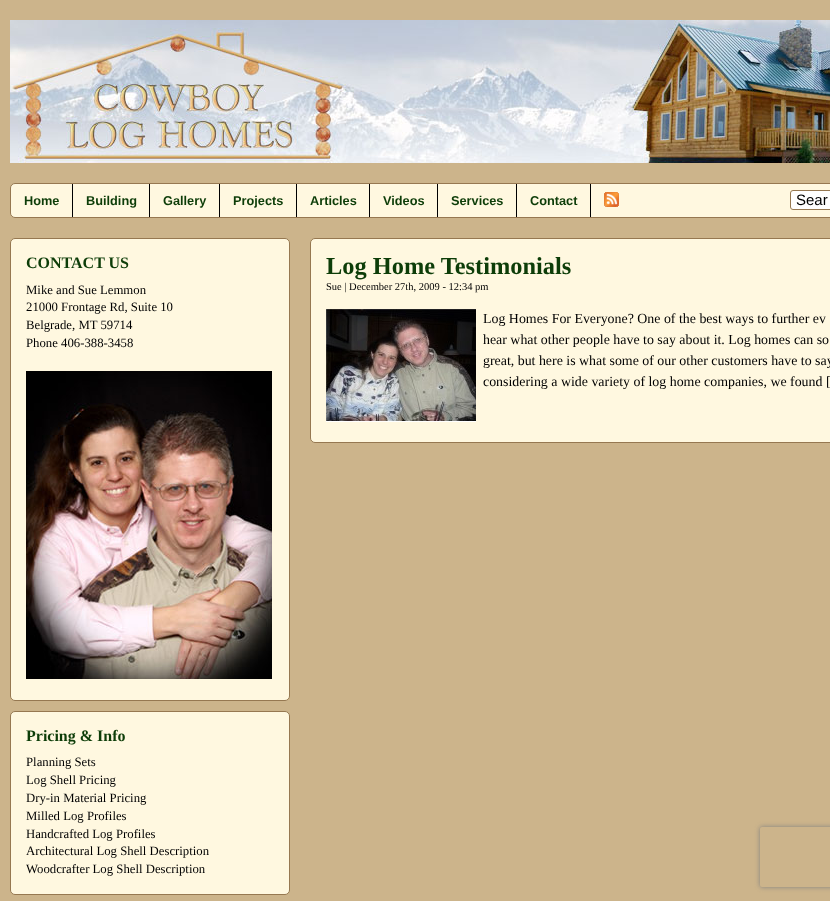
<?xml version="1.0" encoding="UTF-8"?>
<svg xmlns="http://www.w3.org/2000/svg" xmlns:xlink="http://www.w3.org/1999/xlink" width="830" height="901">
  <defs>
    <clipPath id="clip1"><path d="M 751 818 h 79 v 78 h -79 z m 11 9 h 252 c 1 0 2 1 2 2 v 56 c 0 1 -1 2 -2 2 h -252 c -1 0 -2 -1 -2 -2 v -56 c 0 -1 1 -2 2 -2 z" clip-rule="evenodd" /></clipPath>
  </defs>
  <rect width="100%" height="100%" fill="#ccb48b" />
  <image x="10" y="20" width="820" height="143" xlink:href="image1.png" />
  <rect x="10.5" y="183.5" width="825" height="34" rx="4.5" fill="#fff8e0" stroke="#967851" />
  <rect x="72" y="184" width="1" height="33" fill="#000000" />
  <rect x="149" y="184" width="1" height="33" fill="#000000" />
  <rect x="219" y="184" width="1" height="33" fill="#000000" />
  <rect x="296" y="184" width="1" height="33" fill="#000000" />
  <rect x="369" y="184" width="1" height="33" fill="#000000" />
  <rect x="437" y="184" width="1" height="33" fill="#000000" />
  <rect x="516" y="184" width="1" height="33" fill="#000000" />
  <rect x="590" y="184" width="1" height="33" fill="#000000" />
  <image x="604" y="192" width="15" height="15" xlink:href="image2.png" />
  <rect x="790.5" y="190.5" width="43" height="19" rx="2.5" fill="#ffffff" stroke="#967851" />
  <rect x="10.5" y="238.5" width="279" height="462" rx="4.5" fill="#fff8e0" stroke="#967851" />
  <image x="26" y="371" width="246" height="308" xlink:href="image3.png" />
  <rect x="10.5" y="711.5" width="279" height="183" rx="4.5" fill="#fff8e0" stroke="#967851" />
  <rect x="310.5" y="238.5" width="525" height="204" rx="4.5" fill="#fff8e0" stroke="#967851" />
  <image x="326" y="309" width="150" height="113" xlink:href="image4.png" />
  <g clip-path="url(#clip1)">
    <rect x="760" y="827" width="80" height="60" rx="2" fill="#808080" filter="blur(2.5px)" />
  </g>
  <text x="24" y="205" style="font-family: Liberation Sans; font-size: 12.75px; font-weight: bold; fill: #0d3d08">Home</text>
  <text x="86" y="205" style="font-family: Liberation Sans; font-size: 12.75px; font-weight: bold; fill: #0d3d08">Building</text>
  <text x="163" y="205" style="font-family: Liberation Sans; font-size: 12.75px; font-weight: bold; fill: #0d3d08">Gallery</text>
  <text x="233" y="205" style="font-family: Liberation Sans; font-size: 12.75px; font-weight: bold; fill: #0d3d08">Projects</text>
  <text x="310" y="205" style="font-family: Liberation Sans; font-size: 12.75px; font-weight: bold; fill: #0d3d08">Articles</text>
  <text x="383" y="205" style="font-family: Liberation Sans; font-size: 12.75px; font-weight: bold; fill: #0d3d08">Videos</text>
  <text x="451" y="205" style="font-family: Liberation Sans; font-size: 12.75px; font-weight: bold; fill: #0d3d08">Services</text>
  <text x="530" y="205" style="font-family: Liberation Sans; font-size: 12.75px; font-weight: bold; fill: #0d3d08">Contact</text>
  <text x="796" y="205" style="font-family: Liberation Sans; font-size: 15px; fill: #000000">Sear</text>
  <text x="26" y="268" style="font-family: Liberation Serif; font-size: 16px; font-weight: bold; fill: #0d3d08">CONTACT US</text>
  <text x="26" y="294" style="font-family: Liberation Serif; font-size: 12.75px; fill: #000000">Mike and Sue Lemmon</text>
  <text x="26" y="311" style="font-family: Liberation Serif; font-size: 12.75px; fill: #000000">21000 Frontage Rd, Suite 10</text>
  <text x="26" y="329" style="font-family: Liberation Serif; font-size: 12.75px; fill: #000000">Belgrade, MT 59714</text>
  <text x="26" y="347" style="font-family: Liberation Serif; font-size: 12.75px; fill: #000000">Phone 406-388-3458</text>
  <text x="26" y="741" style="font-family: Liberation Serif; font-size: 16px; font-weight: bold; fill: #0d3d08">Pricing &amp; Info</text>
  <text x="26" y="766" style="font-family: Liberation Serif; font-size: 12.75px; fill: #000000">Planning Sets</text>
  <text x="26" y="784" style="font-family: Liberation Serif; font-size: 12.75px; fill: #000000">Log Shell Pricing</text>
  <text x="26" y="802" style="font-family: Liberation Serif; font-size: 12.75px; fill: #000000">Dry-in Material Pricing</text>
  <text x="26" y="820" style="font-family: Liberation Serif; font-size: 12.75px; fill: #000000">Milled Log Profiles</text>
  <text x="26" y="838" style="font-family: Liberation Serif; font-size: 12.75px; fill: #000000">Handcrafted Log Profiles</text>
  <text x="26" y="855" style="font-family: Liberation Serif; font-size: 12.75px; fill: #000000">Architectural Log Shell Description</text>
  <text x="26" y="873" style="font-family: Liberation Serif; font-size: 12.75px; fill: #000000">Woodcrafter Log Shell Description</text>
  <text x="326" y="274" style="font-family: Liberation Serif; font-size: 24.4px; font-weight: bold; fill: #0d3d08">Log Home Testimonials</text>
  <text x="326" y="290" style="font-family: Liberation Serif; font-size: 10.5px; fill: #000000">Sue | December 27th, 2009 - 12:34 pm</text>
  <text x="483" y="323" style="font-family: Liberation Serif; font-size: 13.9px; fill: #000000">Log Homes For Everyone? One of the best ways to further ev</text>
  <text x="483" y="344" style="font-family: Liberation Serif; font-size: 13.9px; fill: #000000">hear what other people have to say about it. Log homes can so</text>
  <text x="483" y="365" style="font-family: Liberation Serif; font-size: 13.9px; fill: #000000">great, but here is what some of our other customers have to say</text>
  <text x="483" y="386" style="font-family: Liberation Serif; font-size: 13.9px; fill: #000000">considering a wide variety of log home companies, we found [</text>
</svg>
